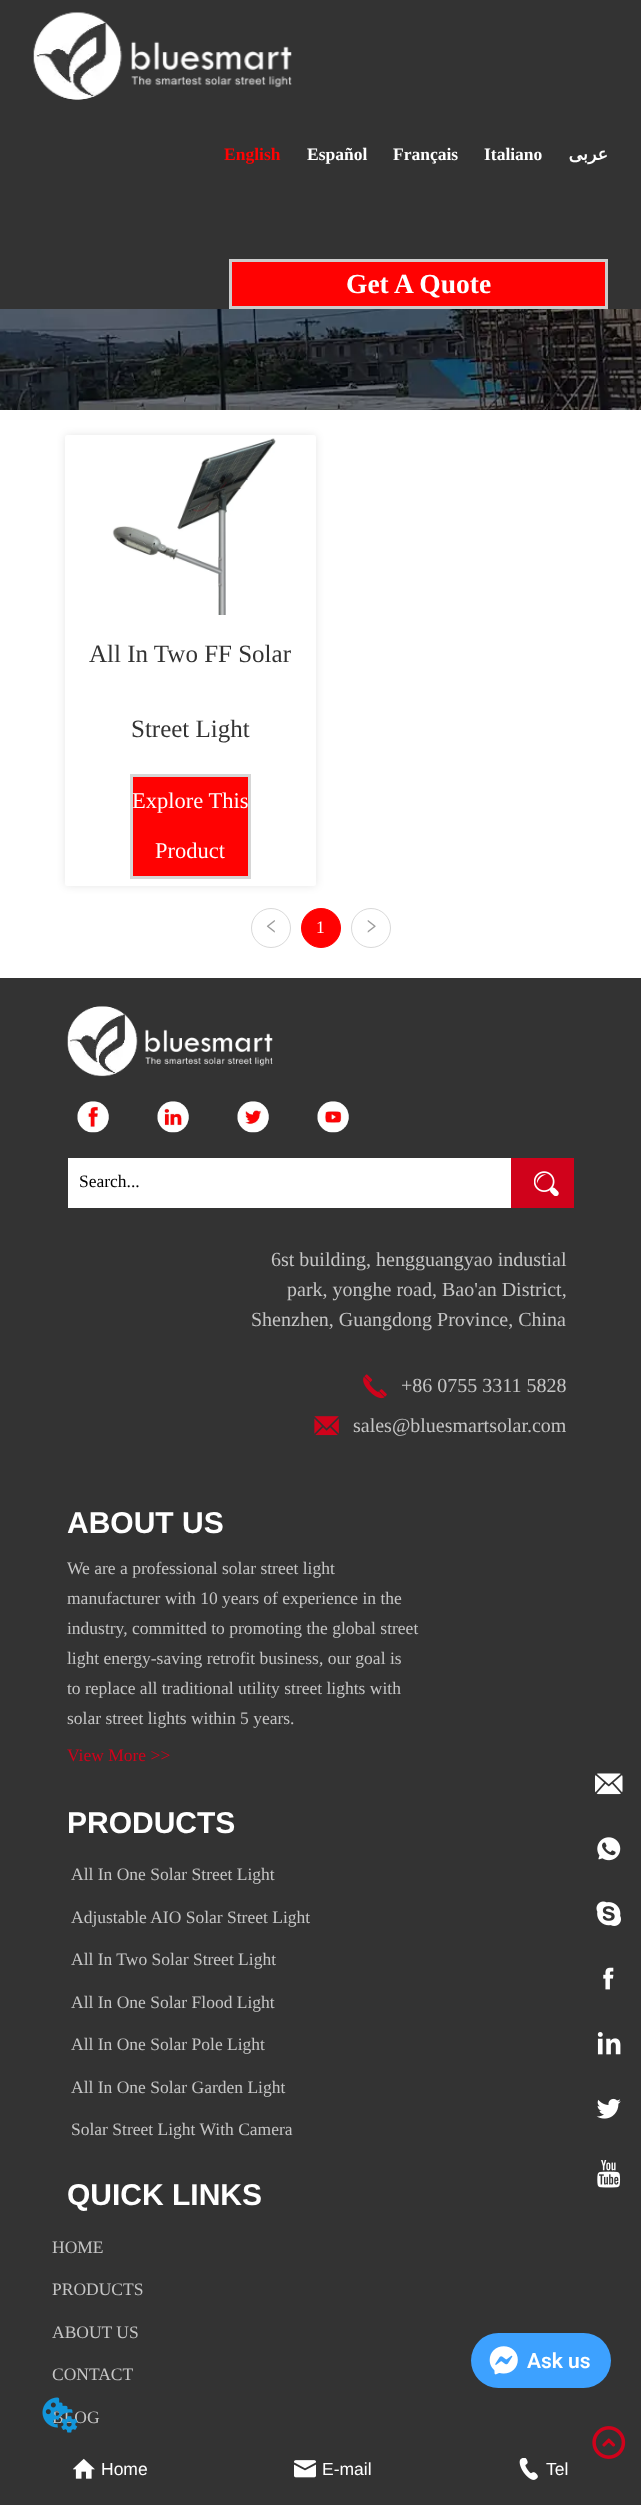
<?xml version="1.0" encoding="UTF-8"?>
<svg xmlns="http://www.w3.org/2000/svg" xmlns:xlink="http://www.w3.org/1999/xlink" width="641" height="2505">
  <rect width="100%" height="100%" fill="#ffffff" />
  <rect width="641" height="309" fill="#333333" />
  <image x="33" y="12" width="259" height="88" xlink:href="image1.png" />
  <rect y="978" width="641" height="1527" fill="#333333" />
  <image x="595" y="1773" width="28" height="22" xlink:href="image2.png" />
  <image x="597" y="1837" width="24" height="24" xlink:href="image3.png" />
  <image x="596" y="1901" width="25" height="25" xlink:href="image4.png" />
  <image x="603" y="1967" width="11" height="23" xlink:href="image5.png" />
  <image x="597" y="2032" width="24" height="23" xlink:href="image6.png" />
  <image x="596" y="2098" width="25" height="21" xlink:href="image7.png" />
  <image x="597" y="2160" width="24" height="28" xlink:href="image8.png" />
  <image x="592" y="2426" width="34" height="33" xlink:href="image9.png" />
  <rect x="230.5" y="260.5" width="376" height="47" fill="#ff0202" stroke="#cccccc" stroke-width="3" />
  <image x="0" y="309" width="641" height="101" xlink:href="image10.png" />
  <rect x="65" y="435" width="251" height="451" rx="2.5" fill="#000000" fill-opacity="0.1" filter="blur(4px)" />
  <rect x="65" y="435" width="251" height="451" rx="2.5" fill="#ffffff" />
  <image x="112" y="438" width="164" height="177" xlink:href="image11.png" />
  <rect x="131.5" y="775.5" width="118" height="102" fill="#ff0202" stroke="#d6d6d6" stroke-width="3" />
  <circle cx="271" cy="928" r="19.5" fill="none" stroke="#d9d9d9" />
  <image x="266" y="920" width="9" height="13" xlink:href="image12.png" />
  <circle cx="321" cy="928" r="19.5" fill="#ff0202" stroke="#ff0202" />
  <circle cx="371" cy="928" r="19.5" fill="none" stroke="#d9d9d9" />
  <image x="367" y="920" width="9" height="13" xlink:href="image13.png" />
  <image x="67" y="1006" width="206" height="71" xlink:href="image14.png" />
  <image x="77" y="1101" width="32" height="32" xlink:href="image15.png" />
  <image x="157" y="1101" width="32" height="32" xlink:href="image16.png" />
  <image x="237" y="1101" width="32" height="32" xlink:href="image17.png" />
  <image x="317" y="1101" width="32" height="32" xlink:href="image18.png" />
  <rect x="68" y="1158" width="443" height="50" fill="#ffffff" />
  <rect x="511" y="1158" width="63" height="50" fill="#d0021b" />
  <image x="534" y="1171" width="25" height="25" xlink:href="image19.png" />
  <image x="363" y="1374" width="24" height="25" xlink:href="image20.png" />
  <image x="314" y="1416" width="25" height="20" xlink:href="image21.png" />
  <image x="73" y="2458" width="22" height="21" xlink:href="image22.png" />
  <image x="294" y="2460" width="22" height="18" xlink:href="image23.png" />
  <image x="519" y="2458" width="19" height="22" xlink:href="image24.png" />
  <rect x="471" y="2333" width="140" height="55" rx="27.5" fill="#3da1ff" />
  <image x="489" y="2346" width="29" height="29" xlink:href="image25.png" />
  <text x="224" y="160" style="font-family: Liberation Serif; font-size: 17.5px; font-weight: bold; fill: #ff0202">English</text>
  <text x="307" y="160" style="font-family: Liberation Serif; font-size: 17.5px; font-weight: bold; fill: #ffffff">Español</text>
  <text x="393" y="160" style="font-family: Liberation Serif; font-size: 17.5px; font-weight: bold; fill: #ffffff">Français</text>
  <text x="484" y="160" style="font-family: Liberation Serif; font-size: 17.5px; font-weight: bold; fill: #ffffff">Italiano</text>
  <text x="608" y="160" style="font-family: DejaVu Sans; font-size: 17.5px; font-weight: bold; direction: rtl; fill: #ffffff">عربى</text>
  <text x="346" y="293" style="font-family: Liberation Serif; font-size: 27.5px; font-weight: bold; fill: #ffffff">Get A Quote</text>
  <text x="89" y="662" style="font-family: Liberation Serif; font-size: 25px; fill: #333333">All In Two FF Solar</text>
  <text x="131" y="737" style="font-family: Liberation Serif; font-size: 25px; fill: #333333">Street Light</text>
  <text x="132" y="808" style="font-family: Liberation Serif; font-size: 22.5px; fill: #ffffff">Explore This</text>
  <text x="155" y="858" style="font-family: Liberation Serif; font-size: 22.5px; fill: #ffffff">Product</text>
  <text x="316" y="933" style="font-family: Liberation Serif; font-size: 17.5px; fill: #ffffff">1</text>
  <text x="79" y="1187" style="font-family: Liberation Serif; font-size: 17.5px; fill: #000000">Search...</text>
  <text x="271" y="1266" style="font-family: Liberation Serif; font-size: 20px; fill: #c5c5c5">6st building, hengguangyao industial</text>
  <text x="287" y="1296" style="font-family: Liberation Serif; font-size: 20px; fill: #c5c5c5">park, yonghe road, Bao'an District,</text>
  <text x="251" y="1326" style="font-family: Liberation Serif; font-size: 20px; fill: #c5c5c5">Shenzhen, Guangdong Province, China</text>
  <text x="401" y="1392" style="font-family: Liberation Serif; font-size: 20px; fill: #c5c5c5">+86 0755 3311 5828</text>
  <text x="353" y="1432" style="font-family: Liberation Serif; font-size: 20px; fill: #c5c5c5">sales@bluesmartsolar.com</text>
  <text x="67" y="1533" style="font-family: Liberation Sans; font-size: 30px; font-weight: bold; fill: #ffffff">ABOUT US</text>
  <text x="67" y="1574" style="font-family: Liberation Serif; font-size: 17.5px; fill: #c5c5c5">We are a professional solar street light</text>
  <text x="67" y="1604" style="font-family: Liberation Serif; font-size: 17.5px; fill: #c5c5c5">manufacturer with 10 years of experience in the</text>
  <text x="67" y="1634" style="font-family: Liberation Serif; font-size: 17.5px; fill: #c5c5c5">industry, committed to promoting the global street</text>
  <text x="67" y="1664" style="font-family: Liberation Serif; font-size: 17.5px; fill: #c5c5c5">light energy-saving retrofit business, our goal is</text>
  <text x="67" y="1694" style="font-family: Liberation Serif; font-size: 17.5px; fill: #c5c5c5">to replace all traditional utility street lights with</text>
  <text x="67" y="1724" style="font-family: Liberation Serif; font-size: 17.5px; fill: #c5c5c5">solar street lights within 5 years.</text>
  <text x="67" y="1761" style="font-family: Liberation Serif; font-size: 17.5px; fill: #d0021b">View More &gt;&gt;</text>
  <text x="67" y="1833" style="font-family: Liberation Sans; font-size: 30px; font-weight: bold; fill: #ffffff">PRODUCTS</text>
  <text x="71" y="1880" style="font-family: Liberation Serif; font-size: 17.5px; fill: #c5c5c5">All In One Solar Street Light</text>
  <text x="71" y="1923" style="font-family: Liberation Serif; font-size: 17.5px; fill: #c5c5c5">Adjustable AIO Solar Street Light</text>
  <text x="71" y="1965" style="font-family: Liberation Serif; font-size: 17.5px; fill: #c5c5c5">All In Two Solar Street Light</text>
  <text x="71" y="2008" style="font-family: Liberation Serif; font-size: 17.5px; fill: #c5c5c5">All In One Solar Flood Light</text>
  <text x="71" y="2050" style="font-family: Liberation Serif; font-size: 17.5px; fill: #c5c5c5">All In One Solar Pole Light</text>
  <text x="71" y="2093" style="font-family: Liberation Serif; font-size: 17.5px; fill: #c5c5c5">All In One Solar Garden Light</text>
  <text x="71" y="2135" style="font-family: Liberation Serif; font-size: 17.5px; fill: #c5c5c5">Solar Street Light With Camera</text>
  <text x="67" y="2205" style="font-family: Liberation Sans; font-size: 30px; font-weight: bold; fill: #ffffff">QUICK LINKS</text>
  <text x="52" y="2253" style="font-family: Liberation Serif; font-size: 17.5px; fill: #c5c5c5">HOME</text>
  <text x="52" y="2295" style="font-family: Liberation Serif; font-size: 17.5px; fill: #c5c5c5">PRODUCTS</text>
  <text x="52" y="2338" style="font-family: Liberation Serif; font-size: 17.5px; fill: #c5c5c5">ABOUT US</text>
  <text x="52" y="2380" style="font-family: Liberation Serif; font-size: 17.5px; fill: #c5c5c5">CONTACT</text>
  <text x="52" y="2423" style="font-family: Liberation Serif; font-size: 17.5px; fill: #c5c5c5">BLOG</text>
  <text x="101" y="2475" style="font-family: Liberation Sans; font-size: 17.5px; fill: #ffffff">Home</text>
  <text x="322" y="2475" style="font-family: Liberation Sans; font-size: 17.5px; fill: #ffffff">E-mail</text>
  <text x="546" y="2475" style="font-family: Liberation Sans; font-size: 17.5px; fill: #ffffff">Tel</text>
  <text x="527" y="2368" style="font-family: Roboto; font-size: 21px; font-weight: 600; fill: #ffffff">Ask us</text>
  <image x="42" y="2397" width="36" height="36" xlink:href="image26.png" />
</svg>
